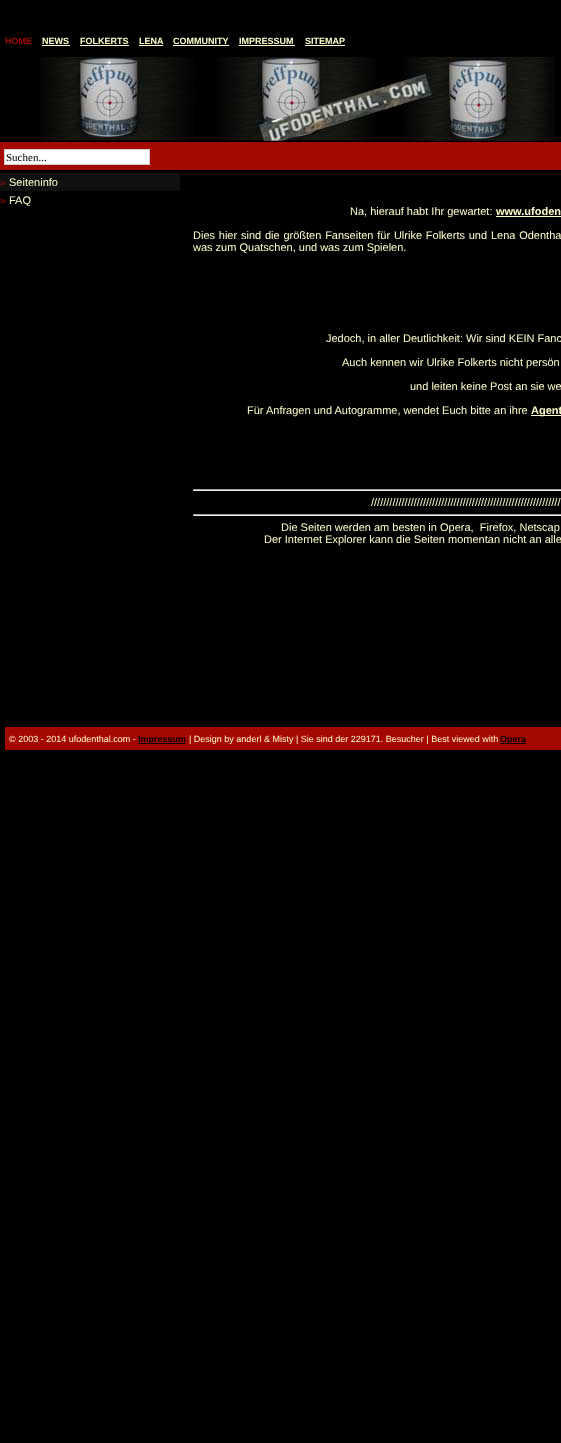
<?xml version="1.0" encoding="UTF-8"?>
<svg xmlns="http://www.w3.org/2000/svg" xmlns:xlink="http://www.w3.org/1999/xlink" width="561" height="1443">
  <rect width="100%" height="100%" fill="#000000" />
  <rect x="42" y="45" width="28" height="1" fill="#ffffcc" />
  <rect x="80" y="45" width="49" height="1" fill="#ffffcc" />
  <rect x="139" y="45" width="24" height="1" fill="#ffffcc" />
  <rect x="173" y="45" width="56" height="1" fill="#ffffcc" />
  <rect x="239" y="45" width="56" height="1" fill="#ffffcc" />
  <rect x="305" y="45" width="40" height="1" fill="#ffffcc" />
  <image x="40" y="56" width="515" height="85" xlink:href="image1.png" />
  <rect y="142" width="561" height="28" fill="#a50800" />
  <rect x="4.5" y="149.5" width="145" height="15" fill="#ffffff" stroke="#d0d0d0" />
  <rect y="173" width="180" height="18" fill="#101010" />
  <rect x="496" y="216" width="65" height="1" fill="#ffffcc" />
  <rect x="531" y="415" width="30" height="1" fill="#ffffcc" />
  <rect x="193" y="489" width="368" height="1" fill="#9f9f9f" />
  <rect x="193" y="490" width="368" height="1" fill="#eeeeee" />
  <rect x="193" y="489" width="1" height="2" fill="#9f9f9f" />
  <rect x="193" y="514" width="368" height="1" fill="#9f9f9f" />
  <rect x="193" y="515" width="368" height="1" fill="#eeeeee" />
  <rect x="193" y="514" width="1" height="2" fill="#9f9f9f" />
  <rect x="5" y="727" width="556" height="23" fill="#a50800" />
  <rect x="138" y="743" width="48" height="1" fill="#000000" />
  <rect x="500" y="743" width="26" height="1" fill="#000000" />
  <text x="5" y="44" style="font-family: Liberation Sans; font-size: 9px; font-weight: bold; fill: #a40b00">HOME</text>
  <text x="42" y="44" style="font-family: Liberation Sans; font-size: 9px; font-weight: bold; fill: #ffffcc">NEWS</text>
  <text x="80" y="44" style="font-family: Liberation Sans; font-size: 9px; font-weight: bold; fill: #ffffcc">FOLKERTS</text>
  <text x="139" y="44" style="font-family: Liberation Sans; font-size: 9px; font-weight: bold; fill: #ffffcc">LENA</text>
  <text x="173" y="44" style="font-family: Liberation Sans; font-size: 9px; font-weight: bold; fill: #ffffcc">COMMUNITY</text>
  <text x="239" y="44" style="font-family: Liberation Sans; font-size: 9px; font-weight: bold; fill: #ffffcc">IMPRESSUM</text>
  <text x="305" y="44" style="font-family: Liberation Sans; font-size: 9px; font-weight: bold; fill: #ffffcc">SITEMAP</text>
  <text x="6" y="161" style="font-family: Liberation Serif; font-size: 11px; fill: #000000">Suchen...</text>
  <text x="0" y="186" style="font-family: Liberation Sans; font-size: 11px; fill: #a40b00">»</text>
  <text x="9" y="186" style="font-family: Liberation Sans; font-size: 11px; fill: #ffffcc">Seiteninfo</text>
  <text x="0" y="204" style="font-family: Liberation Sans; font-size: 11px; fill: #a40b00">»</text>
  <text x="9" y="204" style="font-family: Liberation Sans; font-size: 11px; fill: #ffffcc">FAQ</text>
  <text x="350" y="215" style="font-family: Liberation Sans; font-size: 11px; fill: #ffffcc">Na, hierauf habt Ihr gewartet:</text>
  <text x="496" y="215" style="font-family: Liberation Sans; font-size: 11px; font-weight: bold; fill: #ffffcc">www.ufoden</text>
  <text x="193" y="239" word-spacing="0.75" style="font-family: Liberation Sans; font-size: 11px; fill: #ffffcc">Dies hier sind die größten Fanseiten für Ulrike Folkerts und Lena Odentha</text>
  <text x="193" y="251" style="font-family: Liberation Sans; font-size: 11px; fill: #ffffcc">was zum Quatschen, und was zum Spielen.</text>
  <text x="326" y="342" style="font-family: Liberation Sans; font-size: 11px; fill: #ffffcc">Jedoch, in aller Deutlichkeit: Wir sind KEIN Fanc</text>
  <text x="342" y="366" style="font-family: Liberation Sans; font-size: 11px; fill: #ffffcc">Auch kennen wir Ulrike Folkerts nicht persön</text>
  <text x="410" y="390" style="font-family: Liberation Sans; font-size: 11px; fill: #ffffcc">und leiten keine Post an sie we</text>
  <text x="247" y="414" style="font-family: Liberation Sans; font-size: 11px; fill: #ffffcc">Für Anfragen und Autogramme, wendet Euch bitte an ihre</text>
  <text x="531" y="414" style="font-family: Liberation Sans; font-size: 11px; font-weight: bold; fill: #ffffcc">Agent</text>
  <text x="371" y="506" style="font-family: Liberation Sans; font-size: 11px; fill: #ffffcc">//////////////////////////////////////////////////////////////</text>
  <text x="281" y="531" style="font-family: Liberation Sans; font-size: 11px; fill: #ffffcc" xml:space="preserve">Die Seiten werden am besten in Opera,  Firefox, Netscap</text>
  <text x="264" y="543" style="font-family: Liberation Sans; font-size: 11px; fill: #ffffcc">Der Internet Explorer kann die Seiten momentan nicht an alle</text>
  <text x="9" y="742" style="font-family: Liberation Sans; font-size: 9px; fill: #ffffcc">© 2003 - 2014 ufodenthal.com -</text>
  <text x="138" y="742" style="font-family: Liberation Sans; font-size: 9px; font-weight: bold; fill: #000000">Impressum</text>
  <text x="189" y="742" style="font-family: Liberation Sans; font-size: 9px; fill: #ffffcc">| Design by anderl &amp; Misty | Sie sind der 229171. Besucher | Best viewed with</text>
  <text x="500" y="742" style="font-family: Liberation Sans; font-size: 9px; font-weight: bold; fill: #000000">Opera</text>
</svg>
